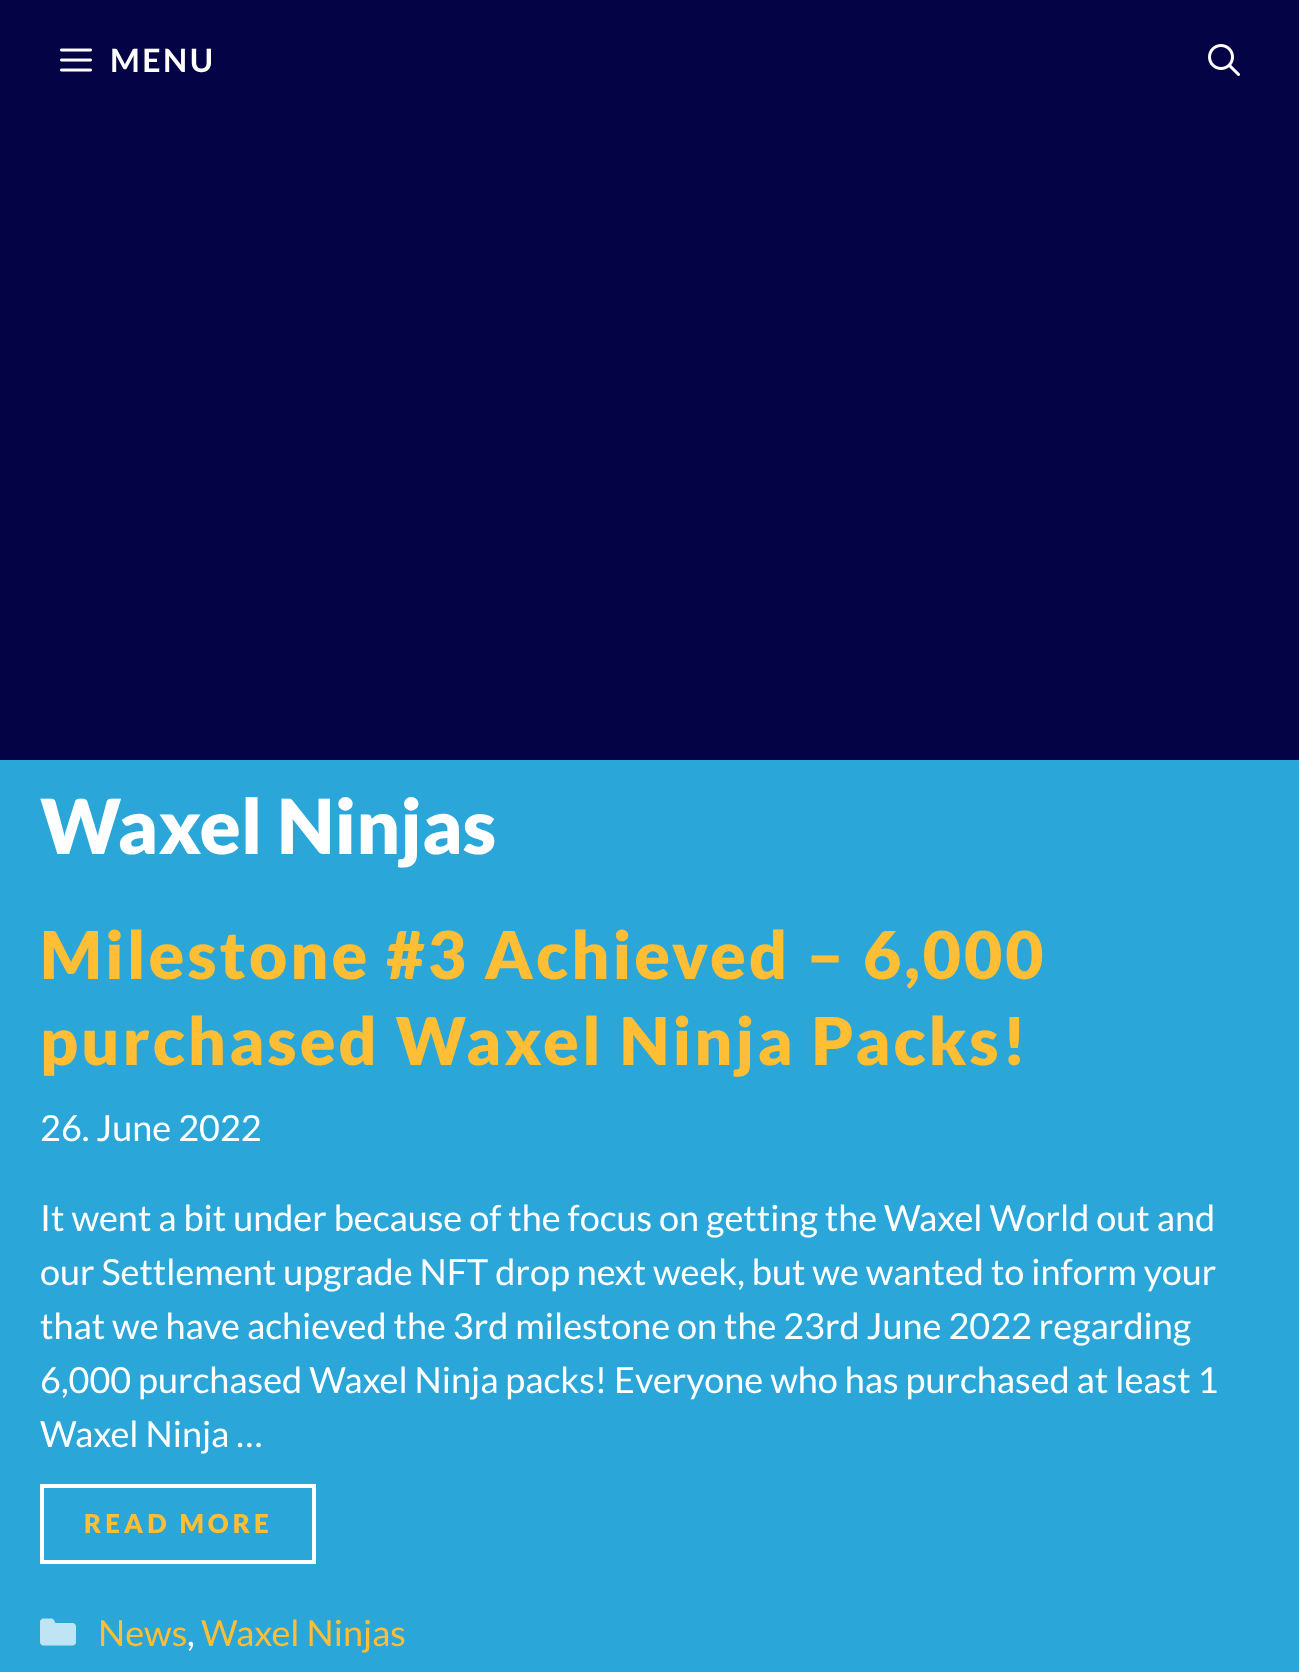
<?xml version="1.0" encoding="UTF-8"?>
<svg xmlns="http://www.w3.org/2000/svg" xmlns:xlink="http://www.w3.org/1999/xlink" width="1299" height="1672">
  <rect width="100%" height="100%" fill="#2ba6d9" />
  <rect width="1299" height="760" fill="#030345" />
  <image x="60" y="48" width="32" height="24" xlink:href="image1.png" />
  <image x="1208" y="44" width="32" height="32" xlink:href="image2.png" />
  <rect x="42" y="1486" width="272" height="76" fill="none" stroke="#ffffff" stroke-width="4" />
  <image x="40" y="1618" width="36" height="28" xlink:href="image3.png" />
  <text x="110" y="72" style="font-family: Lato; font-size: 32px; font-weight: bold; letter-spacing: 2.5px; fill: #ffffff">MENU</text>
  <text x="40" y="854" style="font-family: Lato; font-size: 76px; font-weight: 900; fill: #ffffff">Waxel Ninjas</text>
  <text x="40" y="979" style="font-family: Lato; font-size: 66px; font-weight: 900; letter-spacing: 3px; fill: #ffbe33">Milestone #3 Achieved – 6,000</text>
  <text x="40" y="1065" style="font-family: Lato; font-size: 66px; font-weight: 900; letter-spacing: 3px; fill: #ffbe33">purchased Waxel Ninja Packs!</text>
  <text x="40" y="1141" style="font-family: Lato; font-size: 36px; fill: #ffffff">26. June 2022</text>
  <text x="40" y="1231" style="font-family: Lato; font-size: 36px; fill: #ffffff">It went a bit under because of the focus on getting the Waxel World out and</text>
  <text x="40" y="1285" style="font-family: Lato; font-size: 36px; fill: #ffffff">our Settlement upgrade NFT drop next week, but we wanted to inform your</text>
  <text x="40" y="1339" style="font-family: Lato; font-size: 36px; fill: #ffffff">that we have achieved the 3rd milestone on the 23rd June 2022 regarding</text>
  <text x="40" y="1393" style="font-family: Lato; font-size: 36px; fill: #ffffff">6,000 purchased Waxel Ninja packs! Everyone who has purchased at least 1</text>
  <text x="40" y="1447" style="font-family: Lato; font-size: 36px; fill: #ffffff">Waxel Ninja …</text>
  <text x="84" y="1533" style="font-family: Lato; font-size: 26px; font-weight: 900; letter-spacing: 4px; fill: #ffbe33">READ MORE</text>
  <text x="98" y="1646" style="font-family: Lato; font-size: 36px; fill: #ffbe33">News</text>
  <text x="187" y="1646" style="font-family: Lato; font-size: 36px; fill: #ffffff">,</text>
  <text x="201" y="1646" style="font-family: Lato; font-size: 36px; fill: #ffbe33">Waxel Ninjas</text>
</svg>
